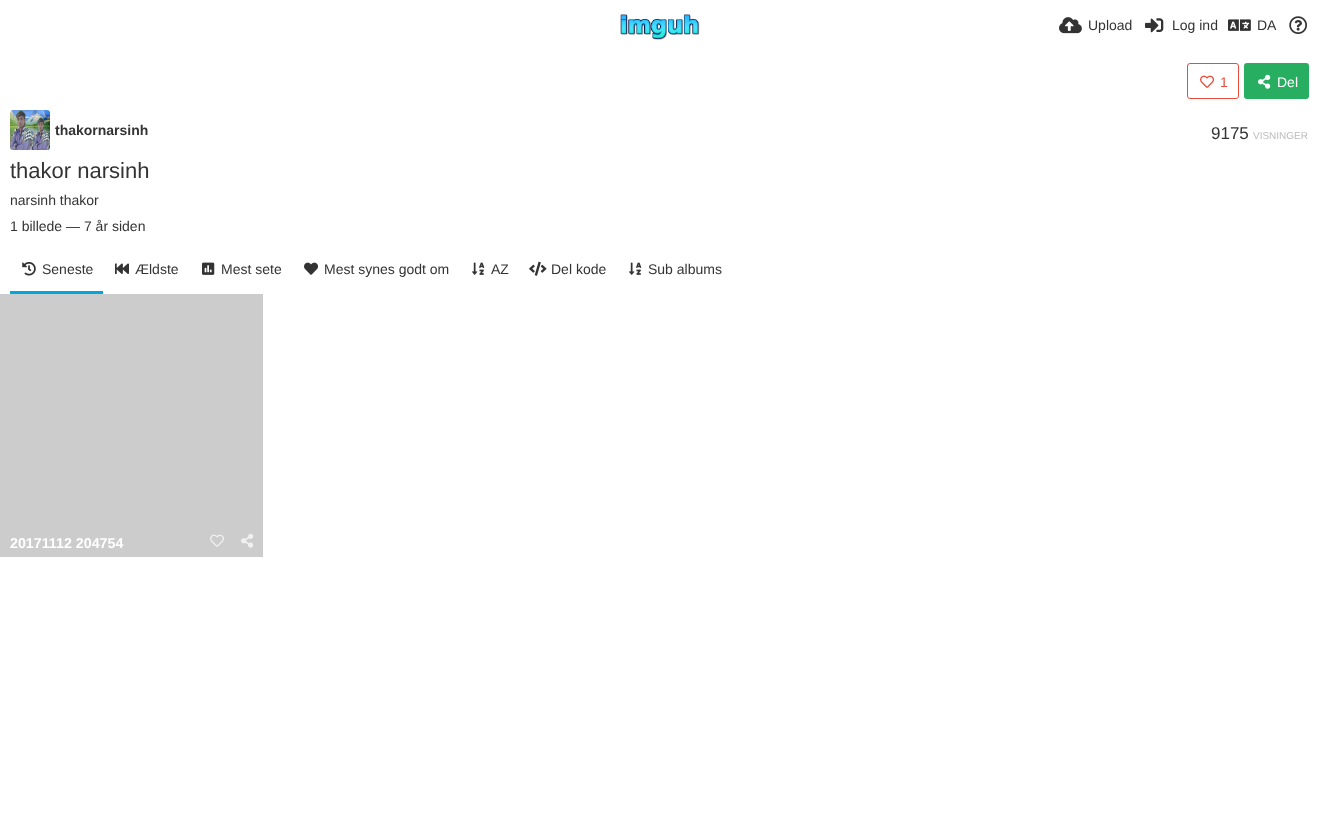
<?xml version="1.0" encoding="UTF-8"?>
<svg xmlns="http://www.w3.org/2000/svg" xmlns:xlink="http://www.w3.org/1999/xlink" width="1319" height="821">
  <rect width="100%" height="100%" fill="#ffffff" />
  <image x="620" y="14" width="80" height="26" xlink:href="image1.png" />
  <image x="1059" y="17" width="23" height="17" xlink:href="image2.png" />
  <image x="1145" y="18" width="19" height="15" xlink:href="image3.png" />
  <image x="1228" y="19" width="23" height="12" xlink:href="image4.png" />
  <image x="1289" y="16" width="18" height="18" xlink:href="image5.png" />
  <rect x="1187.5" y="63.5" width="51" height="35" rx="2.5" fill="none" stroke="#e74c3c" />
  <image x="1200" y="75" width="14" height="13" xlink:href="image6.png" />
  <rect x="1244" y="63" width="65" height="36" rx="3" fill="#27ae61" />
  <image x="1258" y="74" width="13" height="15" xlink:href="image7.png" />
  <image x="10" y="110" width="40" height="40" xlink:href="image8.png" />
  <rect x="10" y="291" width="93" height="3" fill="#00a7da" />
  <image x="22" y="262" width="14" height="14" xlink:href="image9.png" />
  <image x="115" y="263" width="14" height="11" xlink:href="image10.png" />
  <image x="202" y="262" width="13" height="13" xlink:href="image11.png" />
  <image x="304" y="262" width="14" height="13" xlink:href="image12.png" />
  <image x="472" y="262" width="13" height="13" xlink:href="image13.png" />
  <image x="529" y="261" width="18" height="15" xlink:href="image14.png" />
  <image x="629" y="262" width="13" height="13" xlink:href="image13.png" />
  <rect y="294" width="263" height="263" fill="#cccccc" />
  <image x="210" y="534" width="14" height="13" xlink:href="image15.png" />
  <image x="241" y="533" width="13" height="15" xlink:href="image16.png" />
  <text x="1088" y="30" style="font-family: Liberation Sans; font-size: 14px; fill: #333333">Upload</text>
  <text x="1172" y="30" style="font-family: Liberation Sans; font-size: 14px; fill: #333333">Log ind</text>
  <text x="1257" y="30" style="font-family: Liberation Sans; font-size: 14px; fill: #333333">DA</text>
  <text x="1220" y="87" style="font-family: Liberation Sans; font-size: 14px; fill: #e74c3c">1</text>
  <text x="1277" y="87" style="font-family: Liberation Sans; font-size: 14px; fill: #ffffff">Del</text>
  <text x="55" y="135" style="font-family: Liberation Sans; font-size: 14px; font-weight: bold; fill: #333333">thakornarsinh</text>
  <text x="1211" y="139" style="font-family: Liberation Sans; font-size: 17px; fill: #333333">9175</text>
  <text x="1253" y="139" style="font-family: Liberation Sans; font-size: 10px; fill: #bbbbbb">VISNINGER</text>
  <text x="10" y="178" style="font-family: Liberation Sans; font-size: 22px; fill: #333333">thakor narsinh</text>
  <text x="10" y="205" style="font-family: Liberation Sans; font-size: 14px; fill: #333333">narsinh thakor</text>
  <text x="10" y="231" style="font-family: Liberation Sans; font-size: 14px; fill: #333333">1 billede — 7 år siden</text>
  <text x="42" y="274" style="font-family: Liberation Sans; font-size: 14px; fill: #333333">Seneste</text>
  <text x="135" y="274" style="font-family: Liberation Sans; font-size: 14px; fill: #333333">Ældste</text>
  <text x="221" y="274" style="font-family: Liberation Sans; font-size: 14px; fill: #333333">Mest sete</text>
  <text x="324" y="274" style="font-family: Liberation Sans; font-size: 14px; fill: #333333">Mest synes godt om</text>
  <text x="491" y="274" style="font-family: Liberation Sans; font-size: 14px; fill: #333333">AZ</text>
  <text x="551" y="274" style="font-family: Liberation Sans; font-size: 14px; fill: #333333">Del kode</text>
  <text x="648" y="274" style="font-family: Liberation Sans; font-size: 14px; fill: #333333">Sub albums</text>
  <text x="10" y="548" style="font-family: Liberation Sans; font-size: 14.25px; font-weight: bold; fill: #ffffff">20171112 204754</text>
</svg>
